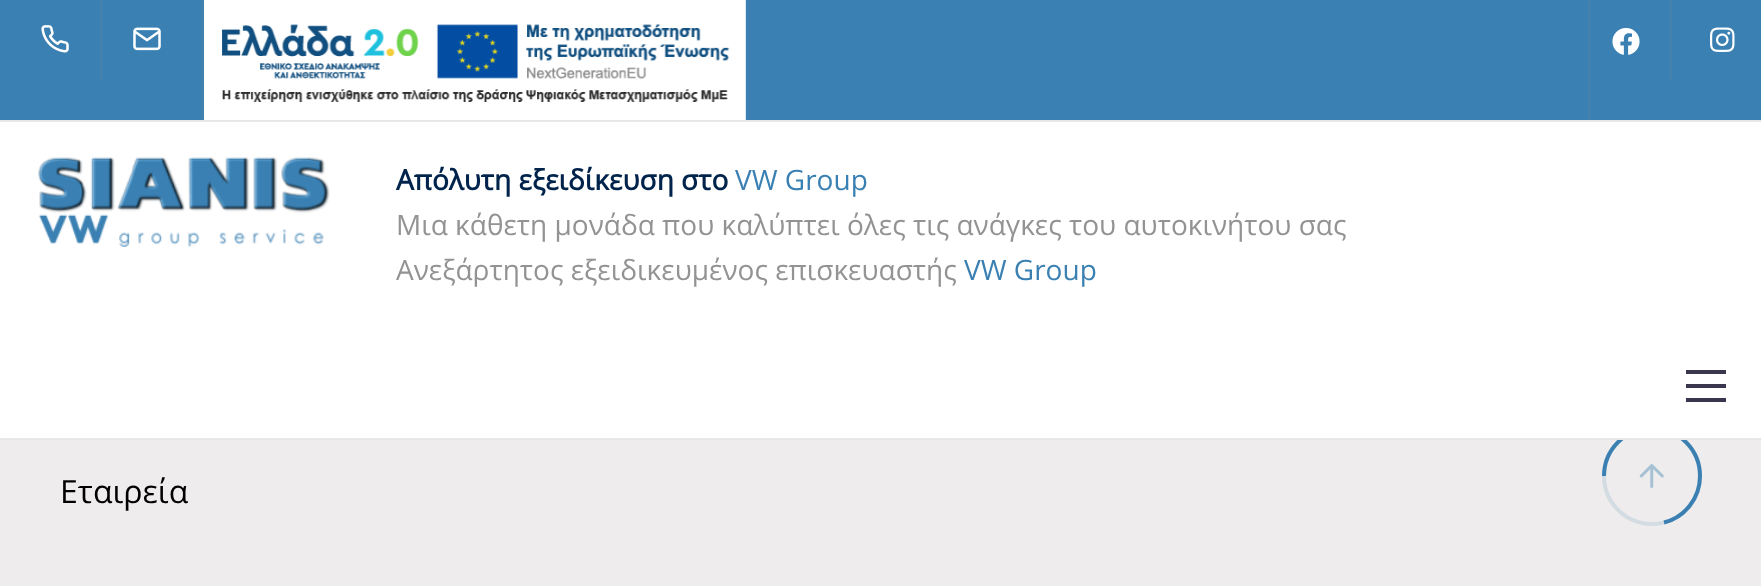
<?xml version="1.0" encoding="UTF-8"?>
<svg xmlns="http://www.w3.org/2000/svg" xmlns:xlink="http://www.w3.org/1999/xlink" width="1761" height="586">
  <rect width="100%" height="100%" fill="#eeecec" />
  <circle cx="1652" cy="476" r="48" fill="none" stroke="#d3dce3" stroke-width="4" />
  <image x="1639" y="464" width="25" height="24" xlink:href="image7.png" />
  <path d="M 1604 476 c 0 -26.5 21.5 -48 48 -48 c 26.5 0 48 21.5 48 48 c 0 22.5 -15.5 41.5 -36 46.5" fill="none" stroke="#3a80b2" stroke-width="4" />
  <rect y="122" width="1761" height="316" fill="#ffffff" />
  <rect y="438" width="1761" height="2" fill="#e7e7e7" />
  <rect width="1761" height="120" fill="#3a80b2" />
  <rect y="120" width="1761" height="2" fill="#e7e7e7" />
  <rect x="202" width="2" height="120" fill="#4581ab" />
  <rect x="100" width="2" height="80" fill="#4581ab" />
  <image x="41" y="25" width="28" height="28" xlink:href="image1.png" />
  <image x="133" y="27" width="28" height="24" xlink:href="image2.png" />
  <image x="204" y="0" width="542" height="120" xlink:href="image3.png" />
  <rect x="1588" width="2" height="120" fill="#4581ab" />
  <rect x="1670" width="2" height="80" fill="#4581ab" />
  <image x="1612" y="28" width="28" height="27" xlink:href="image4.png" />
  <image x="1710" y="27" width="25" height="25" xlink:href="image5.png" />
  <image x="38" y="157" width="292" height="90" xlink:href="image6.png" />
  <rect x="1686" y="398" width="40" height="4" fill="#39364e" />
  <rect x="1686" y="370" width="40" height="4" fill="#39364e" />
  <rect x="1686" y="384" width="40" height="4" fill="#39364e" />
  <text x="396" y="190" style="font-family: Open Sans; font-size: 28px; font-weight: bold; fill: #00234b">Απόλυτη εξειδίκευση στο</text>
  <text x="735" y="190" style="font-family: Open Sans; font-size: 28px; fill: #3a80b2">VW Group</text>
  <text x="396" y="235" style="font-family: Open Sans; font-size: 28px; fill: #939393">Μια κάθετη μονάδα που καλύπτει όλες τις ανάγκες του αυτοκινήτου σας</text>
  <text x="396" y="280" style="font-family: Open Sans; font-size: 28px; fill: #939393">Ανεξάρτητος εξειδικευμένος επισκευαστής</text>
  <text x="964" y="280" style="font-family: Open Sans; font-size: 28px; fill: #3a80b2">VW Group</text>
  <text x="60" y="503" style="font-family: Open Sans; font-size: 32px; fill: #000000">Εταιρεία</text>
</svg>
